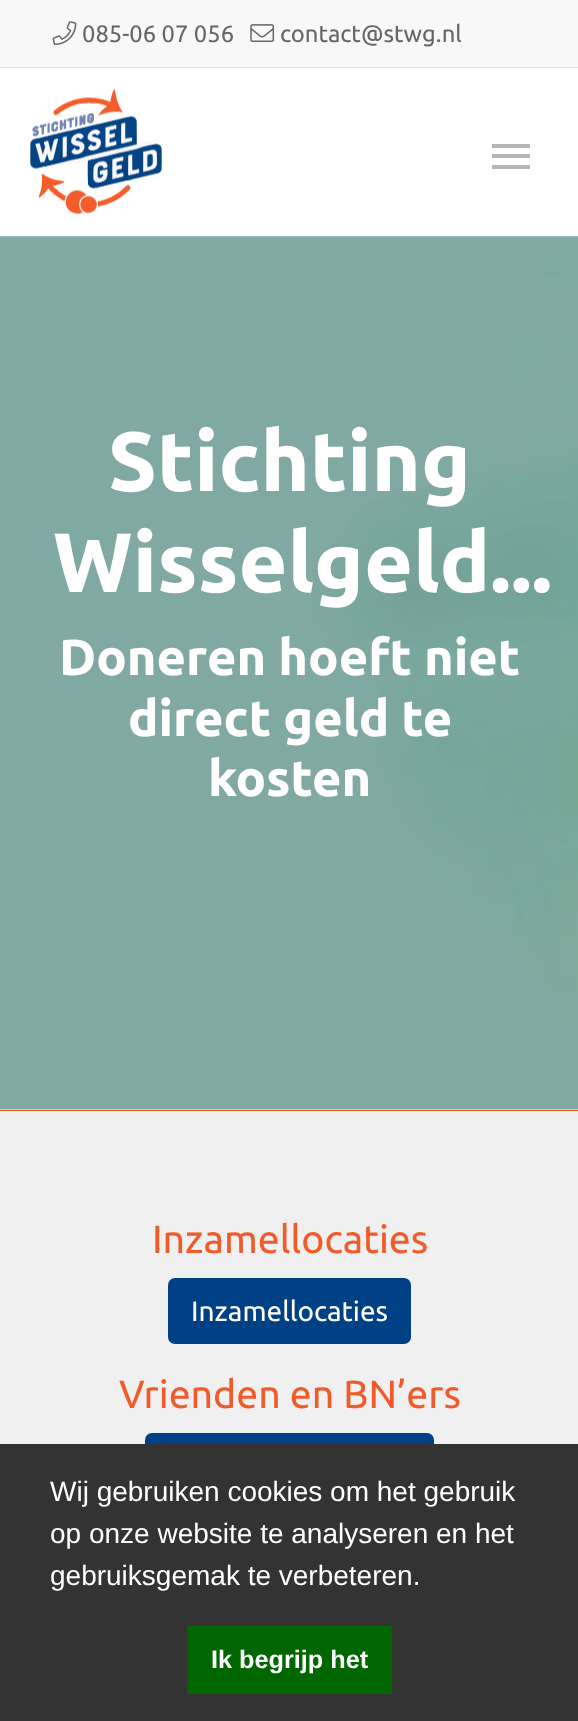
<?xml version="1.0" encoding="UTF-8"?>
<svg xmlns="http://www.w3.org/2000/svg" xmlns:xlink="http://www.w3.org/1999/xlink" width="578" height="1721">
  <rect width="100%" height="100%" fill="#ffffff" />
  <rect width="578" height="67" fill="#f8f8f8" />
  <rect y="67" width="578" height="1" fill="#dee2e6" />
  <image x="52" y="21" width="25" height="24" xlink:href="image1.png" />
  <image x="250" y="24" width="25" height="18" xlink:href="image2.png" />
  <image x="30" y="88" width="132" height="127" xlink:href="image3.png" />
  <rect x="492" y="144" width="38" height="4" fill="#b6b6b6" />
  <rect x="492" y="154" width="38" height="4" fill="#b6b6b6" />
  <rect x="492" y="165" width="38" height="4" fill="#b6b6b6" />
  <image x="0" y="236" width="578" height="874" xlink:href="image4.png" />
  <rect y="1110" width="578" height="1" fill="#f15a29" />
  <rect y="1111" width="578" height="333" fill="#f0f0f0" />
  <rect x="168" y="1278" width="243" height="66" rx="7" fill="#004185" />
  <rect x="145" y="1433" width="289" height="67" rx="7" fill="#004185" />
  <rect y="1444" width="578" height="277" fill="#333333" />
  <rect x="187" y="1626" width="205" height="68" fill="#006600" />
  <text x="82" y="42" style="font-family: Ubuntu; font-size: 23.75px; fill: #666666">085-06 07 056</text>
  <text x="280" y="42" style="font-family: Ubuntu; font-size: 23.75px; fill: #666666">contact@stwg.nl</text>
  <text x="108" y="491" style="font-family: Ubuntu; font-size: 84px; font-weight: bold; fill: #ffffff">Stichting</text>
  <text x="53" y="592" style="font-family: Ubuntu; font-size: 84px; font-weight: bold; fill: #ffffff">Wisselgeld...</text>
  <text x="59" y="675" style="font-family: Ubuntu; font-size: 50.5px; font-weight: bold; fill: #ffffff">Doneren hoeft niet</text>
  <text x="128" y="736" style="font-family: Ubuntu; font-size: 50.5px; font-weight: bold; fill: #ffffff">direct geld te</text>
  <text x="208" y="796" style="font-family: Ubuntu; font-size: 50.5px; font-weight: bold; fill: #ffffff">kosten</text>
  <text x="152" y="1253" style="font-family: Ubuntu; font-size: 39.25px; fill: #f15a29">Inzamellocaties</text>
  <text x="191" y="1321" style="font-family: Ubuntu; font-size: 28px; fill: #ffffff">Inzamellocaties</text>
  <text x="119" y="1408" style="font-family: Ubuntu; font-size: 39.25px; fill: #f15a29">Vrienden en BN’ers</text>
  <text x="50" y="1501" style="font-family: Liberation Sans; font-size: 28px; fill: #ffffff">Wij gebruiken cookies om het gebruik</text>
  <text x="50" y="1543" style="font-family: Liberation Sans; font-size: 28px; fill: #ffffff">op onze website te analyseren en het</text>
  <text x="50" y="1585" style="font-family: Liberation Sans; font-size: 28px; fill: #ffffff">gebruiksgemak te verbeteren.</text>
  <text x="211" y="1668" style="font-family: Liberation Sans; font-size: 25.25px; font-weight: bold; fill: #ffffff">Ik begrijp het</text>
</svg>
